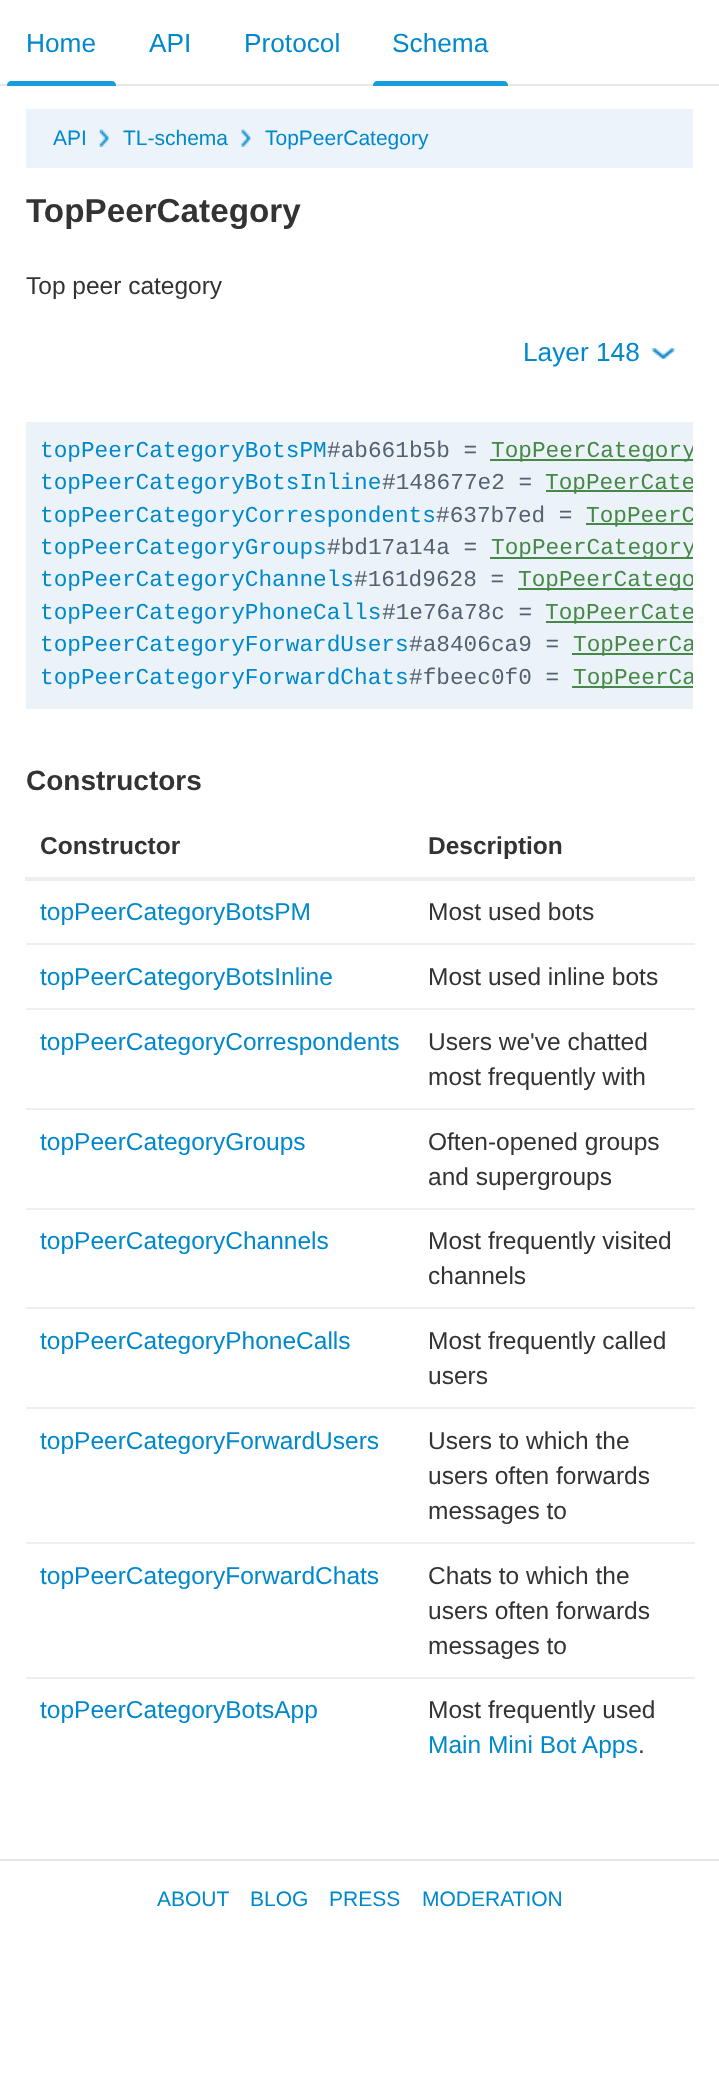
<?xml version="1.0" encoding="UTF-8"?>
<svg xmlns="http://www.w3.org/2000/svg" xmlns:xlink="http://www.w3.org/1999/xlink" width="719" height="2093">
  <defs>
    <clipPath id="clip1"><rect x="26" y="422" width="667" height="287" /></clipPath>
  </defs>
  <rect width="100%" height="100%" fill="#ffffff" />
  <rect y="84" width="719" height="2" fill="#e8e8e8" />
  <path d="M 11 81 h 101 c 2 0 4 2 4 4 v 1 h -109 v -1 c 0 -2 2 -4 4 -4 z" fill="#179cde" />
  <path d="M 377 81 h 127 c 2 0 4 2 4 4 v 1 h -135 v -1 c 0 -2 2 -4 4 -4 z" fill="#179cde" />
  <rect x="26" y="109" width="667" height="59" fill="#ecf3fa" />
  <image x="99" y="129" width="10" height="18" xlink:href="image1.png" />
  <image x="241" y="129" width="10" height="18" xlink:href="image2.png" />
  <image x="651" y="348" width="25" height="11" xlink:href="image3.png" />
  <rect x="26" y="422" width="667" height="287" fill="#ecf3f8" />
  <rect x="490" y="459" width="203" height="2" fill="#468847" />
  <rect x="546" y="490" width="147" height="2" fill="#468847" />
  <rect x="586" y="523" width="107" height="2" fill="#468847" />
  <rect x="490" y="557" width="203" height="2" fill="#468847" />
  <rect x="518" y="588" width="175" height="2" fill="#468847" />
  <rect x="546" y="621" width="147" height="2" fill="#468847" />
  <rect x="572" y="653" width="121" height="2" fill="#468847" />
  <rect x="572" y="686" width="121" height="2" fill="#468847" />
  <rect x="25" y="877" width="670" height="4" fill="#eeeeee" />
  <rect x="26" y="943" width="669" height="2" fill="#eeeeee" />
  <rect x="26" y="1008" width="669" height="2" fill="#eeeeee" />
  <rect x="26" y="1108" width="669" height="2" fill="#eeeeee" />
  <rect x="26" y="1208" width="669" height="2" fill="#eeeeee" />
  <rect x="26" y="1307" width="669" height="2" fill="#eeeeee" />
  <rect x="26" y="1407" width="669" height="2" fill="#eeeeee" />
  <rect x="26" y="1542" width="669" height="2" fill="#eeeeee" />
  <rect x="26" y="1677" width="669" height="2" fill="#eeeeee" />
  <rect y="1859" width="719" height="2" fill="#e8e8e8" />
  <text x="26" y="52" style="font-family: Liberation Sans; font-size: 26.25px; fill: #0088cc">Home</text>
  <text x="149" y="52" style="font-family: Liberation Sans; font-size: 26.25px; fill: #0088cc">API</text>
  <text x="244" y="52" style="font-family: Liberation Sans; font-size: 26.25px; fill: #0088cc">Protocol</text>
  <text x="392" y="52" style="font-family: Liberation Sans; font-size: 26.25px; fill: #0088cc">Schema</text>
  <text x="53" y="145" style="font-family: Liberation Sans; font-size: 21px; fill: #0088cc">API</text>
  <text x="123" y="145" style="font-family: Liberation Sans; font-size: 21px; fill: #0088cc">TL-schema</text>
  <text x="265" y="145" style="font-family: Liberation Sans; font-size: 21px; fill: #0088cc">TopPeerCategory</text>
  <text x="26" y="222" style="font-family: Liberation Sans; font-size: 33.25px; font-weight: bold; fill: #333333">TopPeerCategory</text>
  <text x="26" y="294" style="font-family: Liberation Sans; font-size: 24.5px; fill: #333333">Top peer category</text>
  <text x="523" y="361" style="font-family: Liberation Sans; font-size: 26.25px; fill: #0088cc">Layer 148</text>
  <text x="40" y="457" style="font-family: Liberation Mono; font-size: 22.75px; fill: #0088cc">topPeerCategoryBotsPM</text>
  <text x="327" y="457" style="font-family: Liberation Mono; font-size: 22.75px; fill: #546172">#ab661b5b =</text>
  <g clip-path="url(#clip1)">
    <text x="491" y="457" style="font-family: Liberation Mono; font-size: 22.75px; fill: #468847">TopPeerCategory</text>
  </g>
  <text x="40" y="489" style="font-family: Liberation Mono; font-size: 22.75px; fill: #0088cc">topPeerCategoryBotsInline</text>
  <text x="382" y="489" style="font-family: Liberation Mono; font-size: 22.75px; fill: #546172">#148677e2 =</text>
  <g clip-path="url(#clip1)">
    <text x="545" y="489" style="font-family: Liberation Mono; font-size: 22.75px; fill: #468847">TopPeerCate</text>
  </g>
  <text x="40" y="522" style="font-family: Liberation Mono; font-size: 22.75px; fill: #0088cc">topPeerCategoryCorrespondents</text>
  <text x="436" y="522" style="font-family: Liberation Mono; font-size: 22.75px; fill: #546172">#637b7ed =</text>
  <g clip-path="url(#clip1)">
    <text x="586" y="522" style="font-family: Liberation Mono; font-size: 22.75px; fill: #468847">TopPeerC</text>
  </g>
  <text x="40" y="554" style="font-family: Liberation Mono; font-size: 22.75px; fill: #0088cc">topPeerCategoryGroups</text>
  <text x="327" y="554" style="font-family: Liberation Mono; font-size: 22.75px; fill: #546172">#bd17a14a =</text>
  <g clip-path="url(#clip1)">
    <text x="491" y="554" style="font-family: Liberation Mono; font-size: 22.75px; fill: #468847">TopPeerCategory</text>
  </g>
  <text x="40" y="586" style="font-family: Liberation Mono; font-size: 22.75px; fill: #0088cc">topPeerCategoryChannels</text>
  <text x="354" y="586" style="font-family: Liberation Mono; font-size: 22.75px; fill: #546172">#161d9628 =</text>
  <g clip-path="url(#clip1)">
    <text x="518" y="586" style="font-family: Liberation Mono; font-size: 22.75px; fill: #468847">TopPeerCatego</text>
  </g>
  <text x="40" y="619" style="font-family: Liberation Mono; font-size: 22.75px; fill: #0088cc">topPeerCategoryPhoneCalls</text>
  <text x="382" y="619" style="font-family: Liberation Mono; font-size: 22.75px; fill: #546172">#1e76a78c =</text>
  <g clip-path="url(#clip1)">
    <text x="545" y="619" style="font-family: Liberation Mono; font-size: 22.75px; fill: #468847">TopPeerCate</text>
  </g>
  <text x="40" y="651" style="font-family: Liberation Mono; font-size: 22.75px; fill: #0088cc">topPeerCategoryForwardUsers</text>
  <text x="409" y="651" style="font-family: Liberation Mono; font-size: 22.75px; fill: #546172">#a8406ca9 =</text>
  <g clip-path="url(#clip1)">
    <text x="573" y="651" style="font-family: Liberation Mono; font-size: 22.75px; fill: #468847">TopPeerCa</text>
  </g>
  <text x="40" y="684" style="font-family: Liberation Mono; font-size: 22.75px; fill: #0088cc">topPeerCategoryForwardChats</text>
  <text x="409" y="684" style="font-family: Liberation Mono; font-size: 22.75px; fill: #546172">#fbeec0f0 =</text>
  <g clip-path="url(#clip1)">
    <text x="573" y="684" style="font-family: Liberation Mono; font-size: 22.75px; fill: #468847">TopPeerCa</text>
  </g>
  <text x="26" y="790" style="font-family: Liberation Sans; font-size: 28px; font-weight: bold; fill: #333333">Constructors</text>
  <text x="40" y="854" style="font-family: Liberation Sans; font-size: 24.5px; font-weight: bold; fill: #333333">Constructor</text>
  <text x="428" y="854" style="font-family: Liberation Sans; font-size: 24.5px; font-weight: bold; fill: #333333">Description</text>
  <text x="40" y="920" style="font-family: Liberation Sans; font-size: 24.5px; fill: #0088cc">topPeerCategoryBotsPM</text>
  <text x="428" y="920" style="font-family: Liberation Sans; font-size: 24.5px; fill: #333333">Most used bots</text>
  <text x="40" y="985" style="font-family: Liberation Sans; font-size: 24.5px; fill: #0088cc">topPeerCategoryBotsInline</text>
  <text x="428" y="985" style="font-family: Liberation Sans; font-size: 24.5px; fill: #333333">Most used inline bots</text>
  <text x="40" y="1050" style="font-family: Liberation Sans; font-size: 24.5px; fill: #0088cc">topPeerCategoryCorrespondents</text>
  <text x="428" y="1050" style="font-family: Liberation Sans; font-size: 24.5px; fill: #333333">Users we've chatted</text>
  <text x="428" y="1085" style="font-family: Liberation Sans; font-size: 24.5px; fill: #333333">most frequently with</text>
  <text x="40" y="1150" style="font-family: Liberation Sans; font-size: 24.5px; fill: #0088cc">topPeerCategoryGroups</text>
  <text x="428" y="1150" style="font-family: Liberation Sans; font-size: 24.5px; fill: #333333">Often-opened groups</text>
  <text x="428" y="1185" style="font-family: Liberation Sans; font-size: 24.5px; fill: #333333">and supergroups</text>
  <text x="40" y="1249" style="font-family: Liberation Sans; font-size: 24.5px; fill: #0088cc">topPeerCategoryChannels</text>
  <text x="428" y="1249" style="font-family: Liberation Sans; font-size: 24.5px; fill: #333333">Most frequently visited</text>
  <text x="428" y="1284" style="font-family: Liberation Sans; font-size: 24.5px; fill: #333333">channels</text>
  <text x="40" y="1349" style="font-family: Liberation Sans; font-size: 24.5px; fill: #0088cc">topPeerCategoryPhoneCalls</text>
  <text x="428" y="1349" style="font-family: Liberation Sans; font-size: 24.5px; fill: #333333">Most frequently called</text>
  <text x="428" y="1384" style="font-family: Liberation Sans; font-size: 24.5px; fill: #333333">users</text>
  <text x="40" y="1449" style="font-family: Liberation Sans; font-size: 24.5px; fill: #0088cc">topPeerCategoryForwardUsers</text>
  <text x="428" y="1449" style="font-family: Liberation Sans; font-size: 24.5px; fill: #333333">Users to which the</text>
  <text x="428" y="1484" style="font-family: Liberation Sans; font-size: 24.5px; fill: #333333">users often forwards</text>
  <text x="428" y="1519" style="font-family: Liberation Sans; font-size: 24.5px; fill: #333333">messages to</text>
  <text x="40" y="1584" style="font-family: Liberation Sans; font-size: 24.5px; fill: #0088cc">topPeerCategoryForwardChats</text>
  <text x="428" y="1584" style="font-family: Liberation Sans; font-size: 24.5px; fill: #333333">Chats to which the</text>
  <text x="428" y="1619" style="font-family: Liberation Sans; font-size: 24.5px; fill: #333333">users often forwards</text>
  <text x="428" y="1654" style="font-family: Liberation Sans; font-size: 24.5px; fill: #333333">messages to</text>
  <text x="40" y="1718" style="font-family: Liberation Sans; font-size: 24.5px; fill: #0088cc">topPeerCategoryBotsApp</text>
  <text x="428" y="1718" style="font-family: Liberation Sans; font-size: 24.5px; fill: #333333">Most frequently used</text>
  <text x="428" y="1753" style="font-family: Liberation Sans; font-size: 24.5px; fill: #0088cc">Main Mini Bot Apps</text>
  <text x="638" y="1753" style="font-family: Liberation Sans; font-size: 24.5px; fill: #333333">.</text>
  <text x="157" y="1906" style="font-family: Liberation Sans; font-size: 21px; fill: #0088cc">ABOUT</text>
  <text x="250" y="1906" style="font-family: Liberation Sans; font-size: 21px; fill: #0088cc">BLOG</text>
  <text x="329" y="1906" style="font-family: Liberation Sans; font-size: 21px; fill: #0088cc">PRESS</text>
  <text x="422" y="1906" style="font-family: Liberation Sans; font-size: 21px; fill: #0088cc">MODERATION</text>
</svg>
